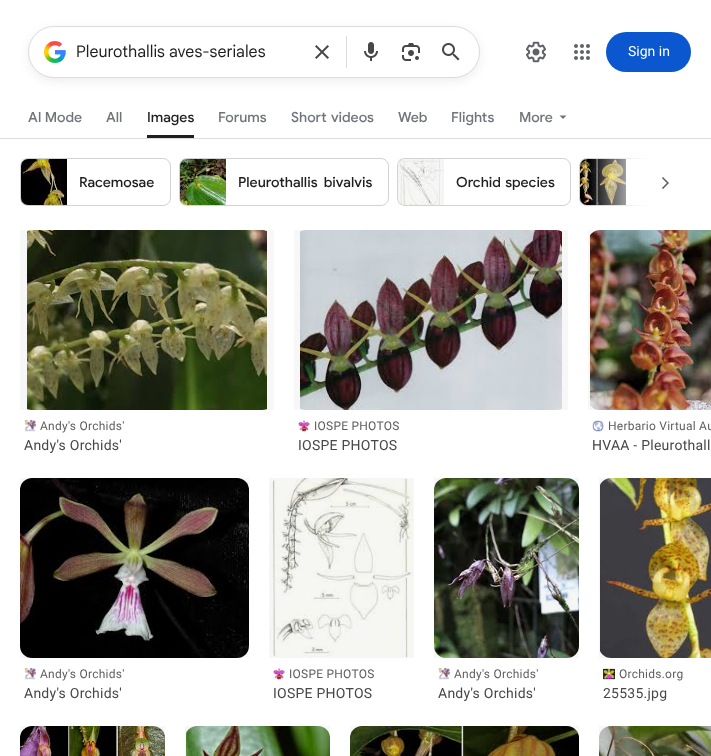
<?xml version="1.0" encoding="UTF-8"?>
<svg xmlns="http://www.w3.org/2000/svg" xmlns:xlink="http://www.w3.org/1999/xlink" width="711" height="756">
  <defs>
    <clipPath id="clip1"><rect x="20" y="158" width="653" height="50" /></clipPath>
    <linearGradient id="g1" gradientUnits="userSpaceOnUse" x1="589" y1="183" x2="689" y2="183"><stop offset="0" stop-color="#ffffff" stop-opacity="0" /><stop offset="0.6" stop-color="#ffffff" /><stop offset="1" stop-color="#ffffff" /></linearGradient>
  </defs>
  <rect width="100%" height="100%" fill="#ffffff" />
  <rect x="28" y="29" width="452" height="52" rx="26" fill="#1f1f1f" fill-opacity="0.08" filter="blur(5px)" />
  <rect x="28.5" y="26.5" width="451" height="51" rx="25.5" fill="#ffffff" stroke="#dadce0" />
  <image x="44" y="41" width="22" height="22" xlink:href="image1.png" />
  <image x="315" y="45" width="14" height="14" xlink:href="image2.png" />
  <rect x="346" y="36" width="1" height="32" fill="#dadce0" />
  <image x="364" y="42" width="14" height="19" xlink:href="image3.png" />
  <image x="402" y="43" width="18" height="18" xlink:href="image4.png" />
  <image x="442" y="43" width="18" height="18" xlink:href="image5.png" />
  <image x="526" y="41" width="20" height="22" xlink:href="image6.png" />
  <image x="574" y="44" width="16" height="16" xlink:href="image7.png" />
  <rect x="606" y="32" width="85" height="40" rx="20" fill="#0b57d0" />
  <rect x="147" y="135" width="47" height="3" fill="#1f1f1f" />
  <path d="M 559.5 115.5 l 3.5 3.5 l 3.5 -3.5 z" fill="#70757a" />
  <rect y="138" width="711" height="1" fill="#dadce0" />
  <rect x="20.5" y="158.5" width="150" height="47" rx="7.5" fill="none" stroke="#d2d2d2" />
  <image x="21" y="159" width="46" height="46" xlink:href="image8.png" />
  <rect x="21" y="159" width="43" height="46" fill="#000000" fill-opacity="0.03" />
  <rect x="179.5" y="158.5" width="209" height="47" rx="7.5" fill="none" stroke="#d2d2d2" />
  <image x="180" y="159" width="46" height="46" xlink:href="image9.png" />
  <rect x="180" y="159" width="46" height="46" fill="#000000" fill-opacity="0.03" />
  <rect x="397.5" y="158.5" width="173" height="47" rx="7.5" fill="none" stroke="#d2d2d2" />
  <image x="398" y="159" width="46" height="46" xlink:href="image10.png" />
  <rect x="398" y="159" width="46" height="46" fill="#000000" fill-opacity="0.03" />
  <g clip-path="url(#clip1)">
    <rect x="579.5" y="158.5" width="124" height="47" rx="7.5" fill="none" stroke="#d2d2d2" />
  </g>
  <image x="580" y="159" width="46" height="46" xlink:href="image11.png" />
  <rect x="580" y="159" width="46" height="46" fill="#000000" fill-opacity="0.03" />
  <rect x="590" y="158" width="83" height="48" fill="url(#g1)" />
  <image x="662" y="177" width="7" height="12" xlink:href="image12.png" />
  <image x="27" y="230" width="240" height="180" xlink:href="image13.png" />
  <rect x="20" y="230" width="254" height="180" fill="#000000" fill-opacity="0.03" />
  <image x="24" y="420" width="12" height="12" xlink:href="image14.png" />
  <image x="300" y="230" width="262" height="180" xlink:href="image15.png" />
  <rect x="294" y="230" width="274" height="180" fill="#000000" fill-opacity="0.03" />
  <image x="298" y="420" width="12" height="12" xlink:href="image16.png" />
  <image x="590" y="230" width="121" height="180" xlink:href="image17.png" />
  <rect x="588" y="230" width="123" height="180" fill="#000000" fill-opacity="0.03" />
  <image x="592" y="420" width="12" height="12" xlink:href="image18.png" />
  <image x="20" y="478" width="229" height="180" xlink:href="image19.png" />
  <rect x="20" y="478" width="229" height="180" fill="#000000" fill-opacity="0.03" />
  <image x="24" y="668" width="12" height="12" xlink:href="image14.png" />
  <image x="270" y="478" width="143" height="180" xlink:href="image20.png" />
  <rect x="269" y="478" width="145" height="180" fill="#000000" fill-opacity="0.03" />
  <image x="273" y="668" width="12" height="12" xlink:href="image21.png" />
  <image x="434" y="478" width="145" height="180" xlink:href="image22.png" />
  <rect x="434" y="478" width="145" height="180" fill="#000000" fill-opacity="0.03" />
  <image x="438" y="668" width="12" height="12" xlink:href="image23.png" />
  <image x="600" y="478" width="111" height="180" xlink:href="image24.png" />
  <rect x="599" y="478" width="112" height="180" fill="#000000" fill-opacity="0.03" />
  <image x="603" y="668" width="12" height="12" xlink:href="image25.png" />
  <image x="20" y="726" width="145" height="30" xlink:href="image26.png" />
  <rect x="20" y="726" width="145" height="30" fill="#000000" fill-opacity="0.03" />
  <image x="186" y="726" width="144" height="30" xlink:href="image27.png" />
  <rect x="185" y="726" width="145" height="30" fill="#000000" fill-opacity="0.03" />
  <image x="350" y="726" width="229" height="30" xlink:href="image28.png" />
  <rect x="350" y="726" width="229" height="30" fill="#000000" fill-opacity="0.03" />
  <image x="599" y="726" width="112" height="30" xlink:href="image29.png" />
  <rect x="599" y="726" width="112" height="30" fill="#000000" fill-opacity="0.03" />
  <text x="76" y="57" style="font-family: Google Sans; font-size: 16px; fill: #1f1f1f">Pleurothallis aves-seriales</text>
  <text x="628" y="56" style="font-family: Roboto; font-size: 14px; fill: #ffffff">Sign in</text>
  <text x="28" y="122" style="font-family: Google Sans; font-size: 14px; font-weight: 500; fill: #70757a">AI Mode</text>
  <text x="106" y="122" style="font-family: Google Sans; font-size: 14px; font-weight: 500; fill: #70757a">All</text>
  <text x="147" y="122" style="font-family: Google Sans; font-size: 14px; font-weight: 500; fill: #1f1f1f">Images</text>
  <text x="218" y="122" style="font-family: Google Sans; font-size: 14px; font-weight: 500; fill: #70757a">Forums</text>
  <text x="291" y="122" word-spacing="1" style="font-family: Google Sans; font-size: 14px; font-weight: 500; fill: #70757a">Short videos</text>
  <text x="398" y="122" style="font-family: Google Sans; font-size: 14px; font-weight: 500; fill: #70757a">Web</text>
  <text x="451" y="122" style="font-family: Google Sans; font-size: 14px; font-weight: 500; fill: #70757a">Flights</text>
  <text x="519" y="122" style="font-family: Google Sans; font-size: 14px; font-weight: 500; fill: #70757a">More</text>
  <text x="79" y="187" style="font-family: Google Sans; font-size: 14px; font-weight: 500; fill: #1f1f1f">Racemosae</text>
  <text x="238" y="187" word-spacing="3" style="font-family: Google Sans; font-size: 14px; font-weight: 500; fill: #1f1f1f">Pleurothallis bivalvis</text>
  <text x="456" y="187" word-spacing="1" style="font-family: Google Sans; font-size: 14px; font-weight: 500; fill: #1f1f1f">Orchid species</text>
  <text x="40" y="430" style="font-family: Roboto; font-size: 12px; letter-spacing: 0.25px; fill: #5e5e5e">Andy's Orchids'</text>
  <text x="24" y="450" style="font-family: Roboto; font-size: 14px; letter-spacing: 0.25px; fill: #474747">Andy's Orchids'</text>
  <text x="314" y="430" style="font-family: Roboto; font-size: 12px; letter-spacing: 0.25px; fill: #5e5e5e">IOSPE PHOTOS</text>
  <text x="298" y="450" style="font-family: Roboto; font-size: 14px; letter-spacing: 0.25px; fill: #474747">IOSPE PHOTOS</text>
  <text x="608" y="430" style="font-family: Roboto; font-size: 12px; letter-spacing: 0.25px; fill: #5e5e5e">Herbario Virtual Au</text>
  <text x="592" y="450" style="font-family: Roboto; font-size: 14px; letter-spacing: 0.25px; fill: #474747">HVAA - Pleurothall</text>
  <text x="40" y="678" style="font-family: Roboto; font-size: 12px; letter-spacing: 0.25px; fill: #5e5e5e">Andy's Orchids'</text>
  <text x="24" y="698" style="font-family: Roboto; font-size: 14px; letter-spacing: 0.25px; fill: #474747">Andy's Orchids'</text>
  <text x="289" y="678" style="font-family: Roboto; font-size: 12px; letter-spacing: 0.25px; fill: #5e5e5e">IOSPE PHOTOS</text>
  <text x="273" y="698" style="font-family: Roboto; font-size: 14px; letter-spacing: 0.25px; fill: #474747">IOSPE PHOTOS</text>
  <text x="454" y="678" style="font-family: Roboto; font-size: 12px; letter-spacing: 0.25px; fill: #5e5e5e">Andy's Orchids'</text>
  <text x="438" y="698" style="font-family: Roboto; font-size: 14px; letter-spacing: 0.25px; fill: #474747">Andy's Orchids'</text>
  <text x="619" y="678" style="font-family: Roboto; font-size: 12px; letter-spacing: 0.25px; fill: #5e5e5e">Orchids.org</text>
  <text x="603" y="698" style="font-family: Roboto; font-size: 14px; letter-spacing: 0.25px; fill: #474747">25535.jpg</text>
</svg>
